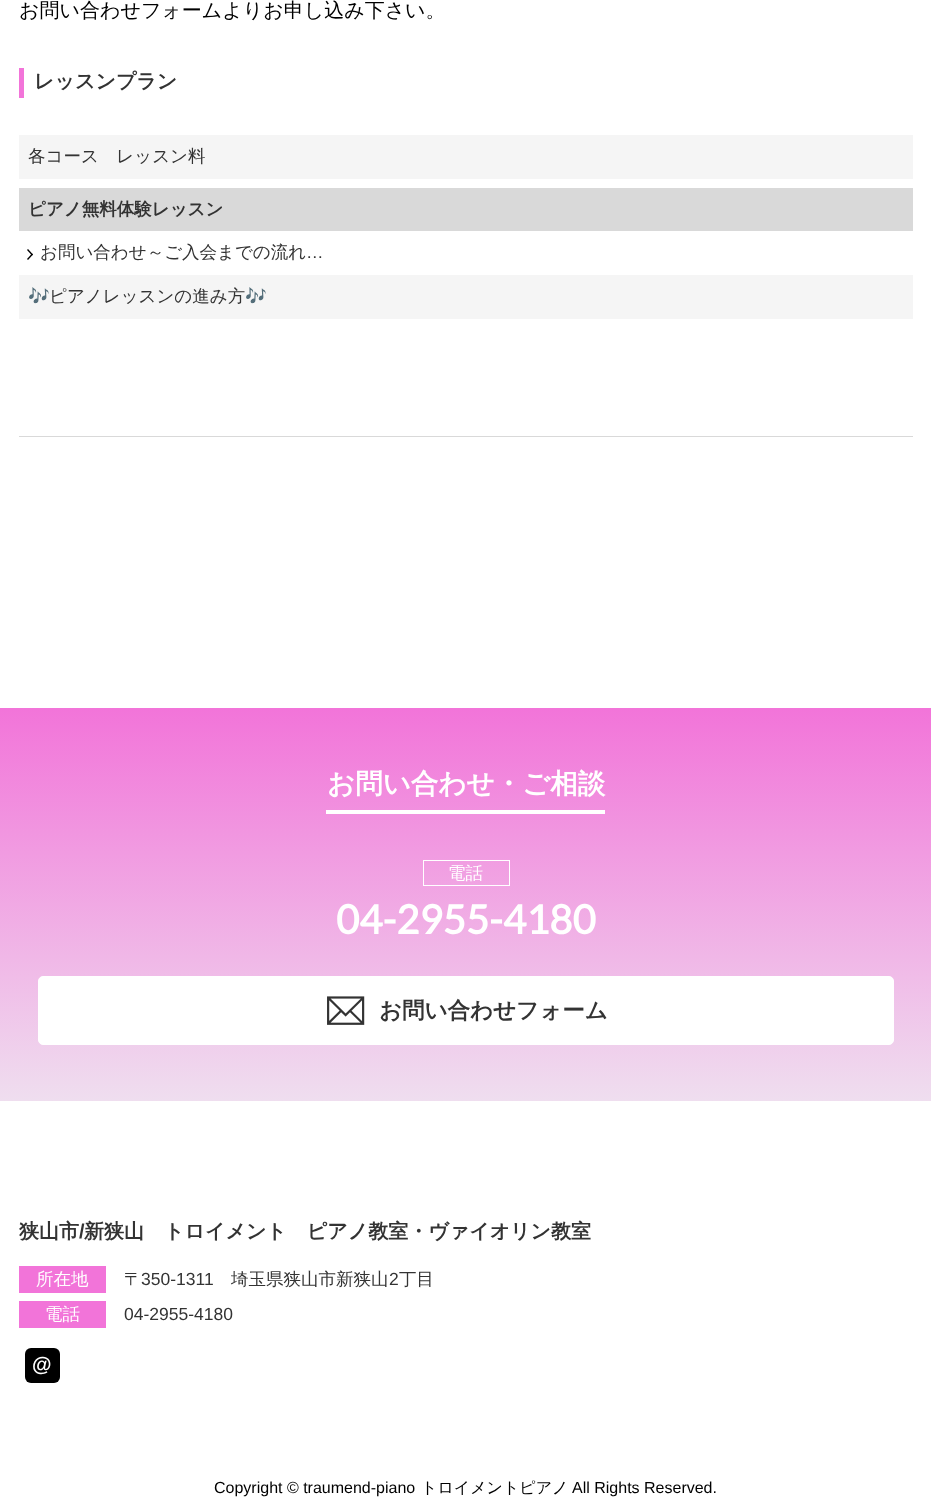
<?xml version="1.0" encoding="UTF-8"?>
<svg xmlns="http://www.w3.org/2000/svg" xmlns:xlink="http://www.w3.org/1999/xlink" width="931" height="1498">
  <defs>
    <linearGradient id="g1" gradientUnits="userSpaceOnUse" x1="466" y1="708" x2="466" y2="1101"><stop offset="0" stop-color="#f274d9" /><stop offset="1" stop-color="#efdeef" /></linearGradient>
  </defs>
  <rect width="100%" height="100%" fill="#ffffff" />
  <rect x="19" y="68" width="5" height="30" fill="#f274d9" />
  <rect x="19" y="436" width="894" height="1" fill="#d9d9d9" />
  <rect x="19" y="135" width="894" height="44" fill="#f5f5f5" />
  <rect x="19" y="188" width="894" height="43" fill="#d9d9d9" />
  <path d="M 28 249 l 5 5.5 l -1 1 l -5 -5.5 z" fill="#000000" />
  <path d="M 32 253.5 l 1 1 l -5 5.5 l -1 -1 z" fill="#000000" />
  <rect x="19" y="275" width="894" height="44" fill="#f5f5f5" />
  <rect y="708" width="931" height="393" fill="url(#g1)" />
  <rect x="326" y="810" width="279" height="4" fill="#ffffff" />
  <rect x="423.5" y="860.5" width="86" height="25" fill="none" stroke="#ffffff" />
  <rect x="38.5" y="976.5" width="855" height="68" rx="4.5" fill="#ffffff" stroke="#ffffff" />
  <image x="327" y="996" width="38" height="29" xlink:href="image1.png" />
  <rect x="19" y="1266" width="87" height="27" fill="#f274d9" />
  <rect x="19" y="1301" width="87" height="27" fill="#f274d9" />
  <rect x="25" y="1348" width="35" height="35" rx="6" fill="#000000" />
  <text x="19" y="17" style="font-family: WenQuanYi Zen Hei; font-size: 20px; font-weight: 500; fill: #000000">お問い合わせフォームよりお申し込み下さい。</text>
  <text x="34" y="88" style="font-family: WenQuanYi Zen Hei; font-size: 20px; font-weight: bold; fill: #333333">レッスンプラン</text>
  <text x="28" y="162" style="font-family: WenQuanYi Zen Hei; font-size: 17.5px; font-weight: 500; fill: #333333">各コース　レッスン料</text>
  <text x="28" y="215" style="font-family: WenQuanYi Zen Hei; font-size: 17.5px; font-weight: bold; fill: #333333">ピアノ無料体験レッスン</text>
  <text x="40" y="258" style="font-family: WenQuanYi Zen Hei; font-size: 17.5px; font-weight: 500; fill: #333333">お問い合わせ～ご入会までの流れ</text>
  <text x="306" y="258" style="font-family: Liberation Sans; font-size: 17.5px; fill: #333333">…</text>
  <text x="28" y="302" style="font-family: Noto Color Emoji; font-size: 17.5px; fill: #333333">🎶</text>
  <text x="49" y="302" style="font-family: WenQuanYi Zen Hei; font-size: 17.5px; font-weight: 500; fill: #333333">ピアノレッスンの進み方</text>
  <text x="245" y="302" style="font-family: Noto Color Emoji; font-size: 17.5px; fill: #333333">🎶</text>
  <text x="327" y="793" style="font-family: WenQuanYi Zen Hei; font-size: 27.5px; font-weight: bold; fill: #ffffff">お問い合わせ・ご相談</text>
  <text x="448" y="879" style="font-family: WenQuanYi Zen Hei; font-size: 17.5px; font-weight: 500; fill: #ffffff">電話</text>
  <text x="336" y="934" style="font-family: Lato; font-size: 40px; font-weight: bold; fill: #ffffff">04-2955-4180</text>
  <text x="379" y="1018" style="font-family: WenQuanYi Zen Hei; font-size: 22.5px; font-weight: bold; fill: #333333">お問い合わせフォーム</text>
  <text x="19" y="1238" style="font-family: WenQuanYi Zen Hei; font-size: 20px; font-weight: bold; fill: #333333">狭山市</text>
  <text x="79" y="1238" style="font-family: Liberation Sans; font-size: 20px; font-weight: bold; fill: #333333">/</text>
  <text x="84" y="1238" style="font-family: WenQuanYi Zen Hei; font-size: 20px; font-weight: bold; fill: #333333">新狭山　トロイメント　ピアノ教室・ヴァイオリン教室</text>
  <text x="36" y="1285" style="font-family: WenQuanYi Zen Hei; font-size: 17.5px; font-weight: 500; fill: #ffffff">所在地</text>
  <text x="124" y="1285" style="font-family: WenQuanYi Zen Hei; font-size: 17.5px; font-weight: 500; fill: #333333">〒</text>
  <text x="141" y="1285" style="font-family: Liberation Sans; font-size: 17.5px; fill: #333333">350-1311</text>
  <text x="231" y="1285" style="font-family: WenQuanYi Zen Hei; font-size: 17.5px; font-weight: 500; fill: #333333">埼玉県狭山市新狭山</text>
  <text x="389" y="1285" style="font-family: Liberation Sans; font-size: 17.5px; fill: #333333">2</text>
  <text x="399" y="1285" style="font-family: WenQuanYi Zen Hei; font-size: 17.5px; font-weight: 500; fill: #333333">丁目</text>
  <text x="45" y="1320" style="font-family: WenQuanYi Zen Hei; font-size: 17.5px; font-weight: 500; fill: #ffffff">電話</text>
  <text x="124" y="1320" style="font-family: Liberation Sans; font-size: 17.5px; fill: #333333">04-2955-4180</text>
  <text x="32" y="1371" style="font-family: Liberation Sans; font-size: 20px; font-weight: bold; fill: #ffffff">@</text>
  <text x="214" y="1493" style="font-family: Liberation Sans; font-size: 16px; fill: #000000">Copyright © traumend-piano</text>
  <text x="421" y="1493" style="font-family: WenQuanYi Zen Hei; font-size: 16px; font-weight: 500; fill: #000000">トロイメントピアノ</text>
  <text x="572" y="1493" style="font-family: Liberation Sans; font-size: 16px; fill: #000000">All Rights Reserved.</text>
</svg>
